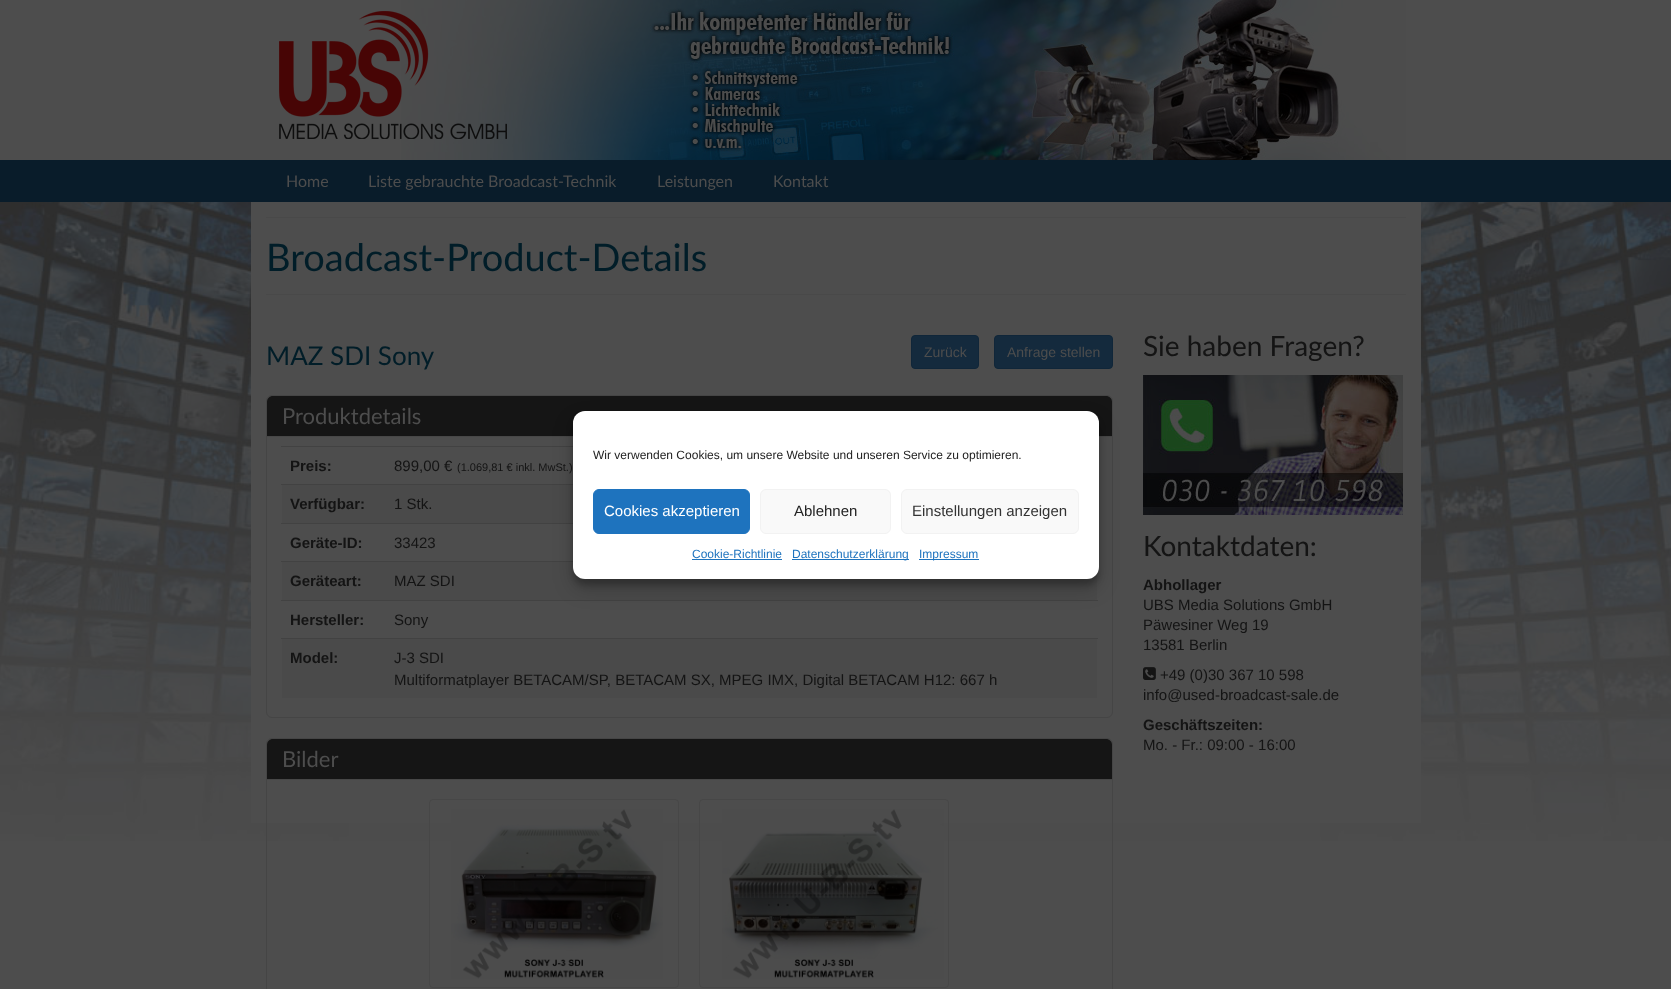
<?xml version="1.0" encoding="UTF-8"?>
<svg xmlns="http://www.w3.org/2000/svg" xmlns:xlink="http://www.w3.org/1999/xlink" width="1671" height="989">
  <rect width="100%" height="100%" fill="#4d4d4d" />
  <image x="401" y="0" width="1005" height="160" xlink:href="image1.png" />
  <image x="279" y="11" width="228" height="128" xlink:href="image2.png" />
  <rect y="160" width="1671" height="42" fill="#091c2a" />
  <image x="0" y="202" width="1671" height="639" xlink:href="image3.png" />
  <rect x="251" y="202" width="1170" height="621" fill="#4d4d4d" />
  <rect x="266" y="217" width="1140" height="1" fill="#494949" />
  <rect x="266" y="294" width="1140" height="1" fill="#494949" />
  <rect x="911.5" y="335.5" width="67" height="33" rx="3.5" fill="#142a3d" stroke="#102639" />
  <rect x="994.5" y="335.5" width="118" height="33" rx="3.5" fill="#142a3d" stroke="#102639" />
  <rect x="266.5" y="395.5" width="846" height="322" rx="5.5" fill="none" stroke="#454545" />
  <path d="M 273 396 h 833 c 3.5 0 6 2.5 6 6 v 35 h -845 v -35 c 0 -3.5 2.5 -6 6 -6 z" fill="#151515" />
  <rect x="267" y="436" width="845" height="1" fill="#474747" />
  <rect x="281" y="446" width="292" height="1" fill="#424242" />
  <rect x="282" y="485" width="291" height="38" fill="#4a4a4a" />
  <rect x="281" y="484" width="292" height="1" fill="#424242" />
  <rect x="281" y="523" width="292" height="1" fill="#424242" />
  <rect x="282" y="562" width="815" height="38" fill="#4a4a4a" />
  <rect x="281" y="561" width="292" height="1" fill="#424242" />
  <rect x="281" y="600" width="817" height="1" fill="#424242" />
  <rect x="282" y="639" width="815" height="59" fill="#4a4a4a" />
  <rect x="281" y="638" width="817" height="1" fill="#424242" />
  <rect x="266.5" y="738.5" width="846" height="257" rx="5.5" fill="none" stroke="#454545" />
  <path d="M 273 739 h 833 c 3.5 0 6 2.5 6 6 v 35 h -845 v -35 c 0 -3.5 2.5 -6 6 -6 z" fill="#151515" />
  <rect x="267" y="779" width="845" height="1" fill="#474747" />
  <rect x="429.5" y="799.5" width="249" height="188" rx="3.5" fill="none" stroke="#474747" />
  <image x="451" y="809" width="212" height="170" xlink:href="image4.png" />
  <rect x="699.5" y="799.5" width="249" height="188" rx="3.5" fill="none" stroke="#474747" />
  <image x="722" y="809" width="222" height="170" xlink:href="image5.png" />
  <image x="1143" y="375" width="260" height="140" xlink:href="image6.png" />
  <image x="1143" y="667" width="13" height="13" xlink:href="image7.png" />
  <rect x="573" y="417" width="526" height="168" rx="12" fill="#000000" fill-opacity="0.23" filter="blur(3px)" />
  <rect x="573" y="421" width="526" height="168" rx="12" fill="#000000" fill-opacity="0.19" filter="blur(10px)" />
  <rect x="573" y="411" width="526" height="168" rx="12" fill="#ffffff" />
  <rect x="593.5" y="489.5" width="156" height="44" rx="5.5" fill="#1e73be" stroke="#1e73be" />
  <rect x="760.5" y="489.5" width="130" height="44" rx="5.5" fill="#f9f9f9" stroke="#f2f2f2" />
  <rect x="901.5" y="489.5" width="177" height="44" rx="5.5" fill="#f9f9f9" stroke="#f2f2f2" />
  <rect x="692" y="559" width="90" height="1" fill="#1e73be" />
  <rect x="792" y="559" width="117" height="1" fill="#1e73be" />
  <rect x="919" y="559" width="60" height="1" fill="#1e73be" />
  <text x="286" y="187" style="font-family: Lato; font-size: 16px; fill: #4d4d4d">Home</text>
  <text x="368" y="187" style="font-family: Lato; font-size: 16px; fill: #4d4d4d">Liste gebrauchte Broadcast-Technik</text>
  <text x="657" y="187" style="font-family: Lato; font-size: 16px; fill: #4d4d4d">Leistungen</text>
  <text x="773" y="187" style="font-family: Lato; font-size: 16px; fill: #4d4d4d">Kontakt</text>
  <text x="266" y="271" style="font-family: Lato; font-size: 38px; fill: #011d28">Broadcast-Product-Details</text>
  <text x="266" y="365" style="font-family: Lato; font-size: 26px; fill: #011d28">MAZ SDI Sony</text>
  <text x="924" y="357" style="font-family: Liberation Sans; font-size: 14px; fill: #4d4d4d">Zurück</text>
  <text x="1007" y="357" style="font-family: Liberation Sans; font-size: 14px; fill: #4d4d4d">Anfrage stellen</text>
  <text x="282" y="424" style="font-family: Lato; font-size: 22px; fill: #4d4d4d">Produktdetails</text>
  <text x="290" y="471" style="font-family: Liberation Sans; font-size: 15px; font-weight: bold; fill: #141414">Preis:</text>
  <text x="394" y="471" style="font-family: Liberation Sans; font-size: 15px; fill: #141414">899,00 €</text>
  <text x="457" y="471" style="font-family: Liberation Sans; font-size: 11px; fill: #141414">(1.069,81 € inkl. MwSt.)</text>
  <text x="290" y="509" style="font-family: Liberation Sans; font-size: 15px; font-weight: bold; fill: #141414">Verfügbar:</text>
  <text x="394" y="509" style="font-family: Liberation Sans; font-size: 15px; fill: #141414">1 Stk.</text>
  <text x="290" y="548" style="font-family: Liberation Sans; font-size: 15px; font-weight: bold; fill: #141414">Geräte-ID:</text>
  <text x="394" y="548" style="font-family: Liberation Sans; font-size: 15px; fill: #141414">33423</text>
  <text x="290" y="586" style="font-family: Liberation Sans; font-size: 15px; font-weight: bold; fill: #141414">Geräteart:</text>
  <text x="394" y="586" style="font-family: Liberation Sans; font-size: 15px; fill: #141414">MAZ SDI</text>
  <text x="290" y="625" style="font-family: Liberation Sans; font-size: 15px; font-weight: bold; fill: #141414">Hersteller:</text>
  <text x="394" y="625" style="font-family: Liberation Sans; font-size: 15px; fill: #141414">Sony</text>
  <text x="290" y="663" style="font-family: Liberation Sans; font-size: 15px; font-weight: bold; fill: #141414">Model:</text>
  <text x="394" y="663" style="font-family: Liberation Sans; font-size: 15px; fill: #141414">J-3 SDI</text>
  <text x="394" y="685" style="font-family: Liberation Sans; font-size: 15px; fill: #141414">Multiformatplayer BETACAM/SP, BETACAM SX, MPEG IMX, Digital BETACAM H12: 667 h</text>
  <text x="282" y="767" style="font-family: Lato; font-size: 22px; fill: #4d4d4d">Bilder</text>
  <text x="1143" y="356" style="font-family: Lato; font-size: 28px; fill: #141414">Sie haben Fragen?</text>
  <text x="1143" y="556" style="font-family: Lato; font-size: 28px; fill: #141414">Kontaktdaten:</text>
  <text x="1143" y="590" style="font-family: Liberation Sans; font-size: 15px; font-weight: bold; fill: #141414">Abhollager</text>
  <text x="1143" y="610" style="font-family: Liberation Sans; font-size: 15px; fill: #141414">UBS Media Solutions GmbH</text>
  <text x="1143" y="630" style="font-family: Liberation Sans; font-size: 15px; fill: #141414">Päwesiner Weg 19</text>
  <text x="1143" y="650" style="font-family: Liberation Sans; font-size: 15px; fill: #141414">13581 Berlin</text>
  <text x="1160" y="680" style="font-family: Liberation Sans; font-size: 15px; fill: #141414">+49 (0)30 367 10 598</text>
  <text x="1143" y="700" style="font-family: Liberation Sans; font-size: 15px; fill: #141414">info@used-broadcast-sale.de</text>
  <text x="1143" y="730" style="font-family: Liberation Sans; font-size: 15px; font-weight: bold; fill: #141414">Geschäftszeiten:</text>
  <text x="1143" y="750" style="font-family: Liberation Sans; font-size: 15px; fill: #141414">Mo. - Fr.: 09:00 - 16:00</text>
  <text x="593" y="459" style="font-family: Liberation Sans; font-size: 12px; fill: #222222">Wir verwenden Cookies, um unsere Website und unseren Service zu optimieren.</text>
  <text x="604" y="516" style="font-family: Liberation Sans; font-size: 15px; fill: #ffffff">Cookies akzeptieren</text>
  <text x="794" y="516" style="font-family: Liberation Sans; font-size: 15px; fill: #222222">Ablehnen</text>
  <text x="912" y="516" style="font-family: Liberation Sans; font-size: 15px; fill: #333333">Einstellungen anzeigen</text>
  <text x="692" y="558" style="font-family: Liberation Sans; font-size: 12px; fill: #1e73be">Cookie-Richtlinie</text>
  <text x="792" y="558" style="font-family: Liberation Sans; font-size: 12px; fill: #1e73be">Datenschutzerklärung</text>
  <text x="919" y="558" style="font-family: Liberation Sans; font-size: 12px; fill: #1e73be">Impressum</text>
</svg>
